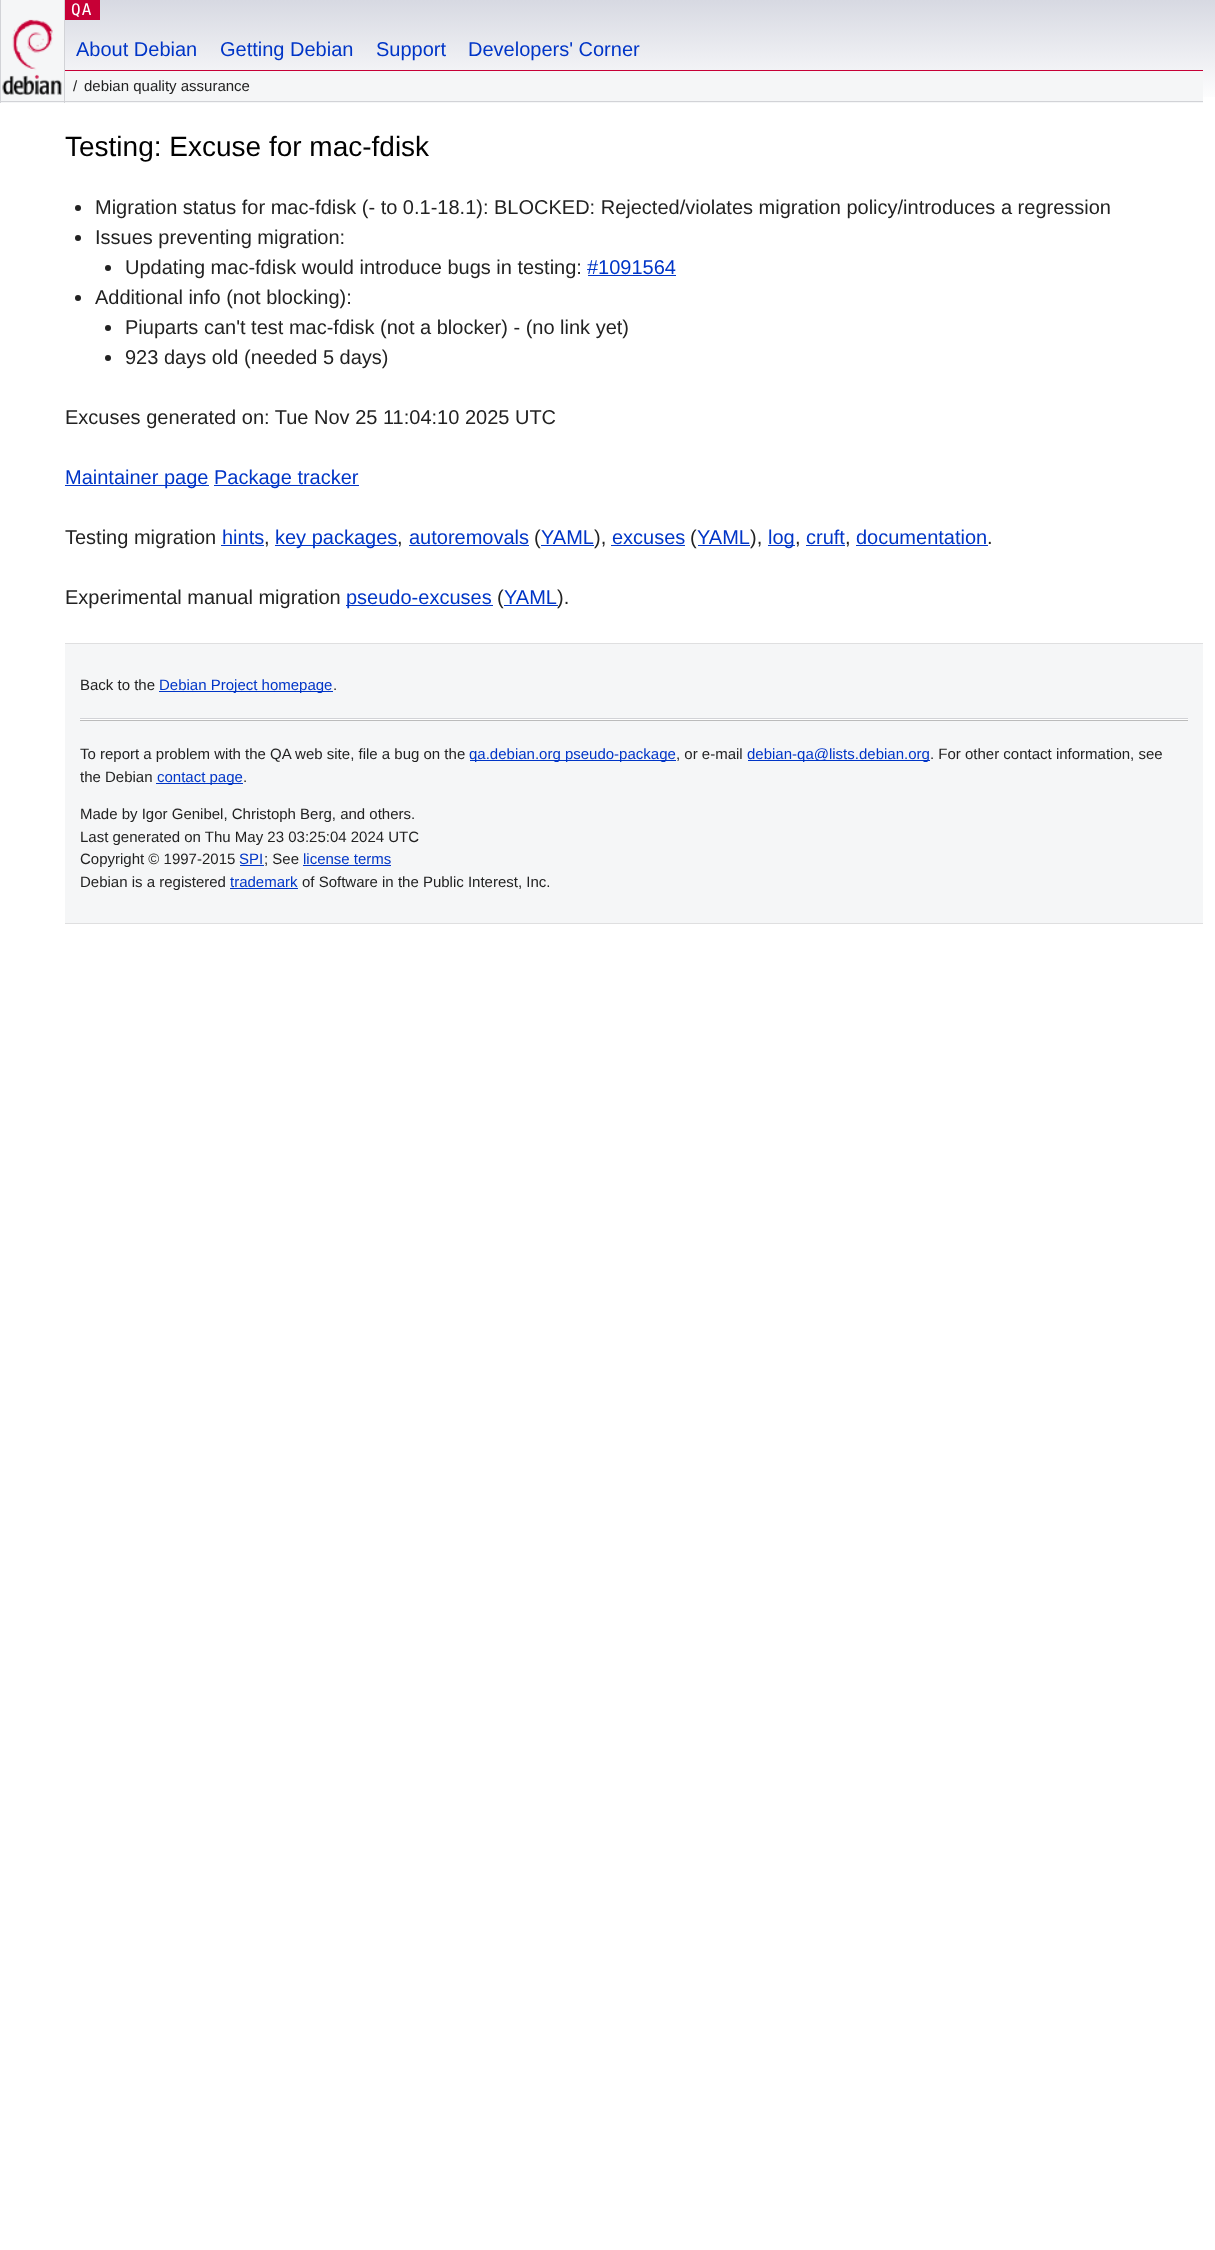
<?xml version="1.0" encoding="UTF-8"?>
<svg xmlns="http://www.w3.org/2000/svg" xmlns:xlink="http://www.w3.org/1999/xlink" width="1215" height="2250">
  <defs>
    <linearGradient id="g1" gradientUnits="userSpaceOnUse" x1="608" y1="0" x2="608" y2="103"><stop offset="0" stop-color="#d7d9e2" /><stop offset="1" stop-color="#ffffff" /></linearGradient>
  </defs>
  <rect width="100%" height="100%" fill="#ffffff" />
  <rect x="65" width="1150" height="97" fill="url(#g1)" />
  <rect x="1" width="63" height="103" fill="#f5f6f7" />
  <rect x="64" width="1" height="103" fill="#d2d3d7" />
  <rect y="101" width="65" height="1" fill="#d2d3d7" />
  <rect width="1" height="103" fill="#d2d3d7" />
  <image x="2" y="19" width="60" height="76" xlink:href="image1.png" />
  <rect x="65" width="35" height="20" fill="#c70036" />
  <rect x="65" y="70" width="1138" height="1" fill="#c70036" />
  <rect x="65" y="71" width="1138" height="32" fill="#f5f6f7" />
  <rect x="65" y="101" width="1138" height="1" fill="#d2d3d7" />
  <circle cx="78" cy="208" r="3" fill="#222222" />
  <circle cx="78" cy="238" r="3" fill="#222222" />
  <circle cx="108" cy="268" r="3" fill="#222222" />
  <rect x="588" y="275" width="88" height="1" fill="#0035c7" />
  <circle cx="78" cy="298" r="3" fill="#222222" />
  <circle cx="108" cy="328" r="3" fill="#222222" />
  <circle cx="108" cy="358" r="3" fill="#222222" />
  <rect x="65" y="485" width="144" height="1" fill="#0035c7" />
  <rect x="214" y="485" width="145" height="1" fill="#0035c7" />
  <rect x="221" y="545" width="43" height="1" fill="#0035c7" />
  <rect x="275" y="545" width="123" height="1" fill="#0035c7" />
  <rect x="409" y="545" width="120" height="1" fill="#0035c7" />
  <rect x="541" y="545" width="53" height="1" fill="#0035c7" />
  <rect x="611" y="545" width="74" height="1" fill="#0035c7" />
  <rect x="698" y="545" width="52" height="1" fill="#0035c7" />
  <rect x="768" y="545" width="27" height="1" fill="#0035c7" />
  <rect x="806" y="545" width="39" height="1" fill="#0035c7" />
  <rect x="856" y="545" width="132" height="1" fill="#0035c7" />
  <rect x="346" y="605" width="147" height="1" fill="#0035c7" />
  <rect x="504" y="605" width="54" height="1" fill="#0035c7" />
  <rect x="65" y="644" width="1138" height="279" fill="#f5f6f7" />
  <rect x="65" y="643" width="1138" height="1" fill="#dfdfe0" />
  <rect x="65" y="923" width="1138" height="1" fill="#dfdfe0" />
  <rect x="159" y="691" width="174" height="1" fill="#0035c7" />
  <rect x="80" y="720" width="1108" height="1" fill="#bbbbbb" />
  <rect x="80" y="718" width="1108" height="1" fill="#d2d3d7" />
  <rect x="80" y="719" width="1108" height="1" fill="#ffffff" />
  <rect x="470" y="760" width="206" height="1" fill="#0035c7" />
  <rect x="748" y="760" width="182" height="1" fill="#0035c7" />
  <rect x="156" y="783" width="87" height="1" fill="#0035c7" />
  <rect x="240" y="865" width="24" height="1" fill="#0035c7" />
  <rect x="303" y="865" width="88" height="1" fill="#0035c7" />
  <rect x="230" y="888" width="68" height="1" fill="#0035c7" />
  <text x="71" y="15" style="font-family: DejaVu Sans Mono; font-size: 16px; letter-spacing: 1px; fill: #ffffff">QA</text>
  <text x="76" y="56" style="font-family: Liberation Sans; font-size: 20px; fill: #0035c7">About Debian</text>
  <text x="220" y="56" style="font-family: Liberation Sans; font-size: 20px; fill: #0035c7">Getting Debian</text>
  <text x="376" y="56" style="font-family: Liberation Sans; font-size: 20px; fill: #0035c7">Support</text>
  <text x="468" y="56" style="font-family: Liberation Sans; font-size: 20px; fill: #0035c7">Developers' Corner</text>
  <text x="73" y="91" style="font-family: Liberation Sans; font-size: 15px; fill: #222222">/</text>
  <text x="84" y="91" style="font-family: Liberation Sans; font-size: 15px; fill: #222222">debian quality assurance</text>
  <text x="65" y="156" style="font-family: Liberation Sans; font-size: 28px; fill: #000000">Testing: Excuse for mac-fdisk</text>
  <text x="95" y="214" style="font-family: Liberation Sans; font-size: 20px; fill: #222222">Migration status for mac-fdisk (- to 0.1-18.1): BLOCKED: Rejected/violates migration policy/introduces a regression</text>
  <text x="95" y="244" style="font-family: Liberation Sans; font-size: 20px; fill: #222222">Issues preventing migration:</text>
  <text x="125" y="274" style="font-family: Liberation Sans; font-size: 20px; fill: #222222">Updating mac-fdisk would introduce bugs in testing:</text>
  <text x="587" y="274" style="font-family: Liberation Sans; font-size: 20px; fill: #0035c7">#1091564</text>
  <text x="95" y="304" style="font-family: Liberation Sans; font-size: 20px; fill: #222222">Additional info (not blocking):</text>
  <text x="125" y="334" style="font-family: Liberation Sans; font-size: 20px; fill: #222222">Piuparts can't test mac-fdisk (not a blocker) - (no link yet)</text>
  <text x="125" y="364" style="font-family: Liberation Sans; font-size: 20px; fill: #222222">923 days old (needed 5 days)</text>
  <text x="65" y="424" style="font-family: Liberation Sans; font-size: 20px; fill: #222222">Excuses generated on: Tue Nov 25 11:04:10 2025 UTC</text>
  <text x="65" y="484" style="font-family: Liberation Sans; font-size: 20px; fill: #0035c7">Maintainer page</text>
  <text x="214" y="484" style="font-family: Liberation Sans; font-size: 20px; fill: #0035c7">Package tracker</text>
  <text x="65" y="544" style="font-family: Liberation Sans; font-size: 20px; fill: #222222">Testing migration</text>
  <text x="222" y="544" style="font-family: Liberation Sans; font-size: 20px; fill: #0035c7">hints</text>
  <text x="264" y="544" style="font-family: Liberation Sans; font-size: 20px; fill: #222222">,</text>
  <text x="275" y="544" style="font-family: Liberation Sans; font-size: 20px; fill: #0035c7">key packages</text>
  <text x="397" y="544" style="font-family: Liberation Sans; font-size: 20px; fill: #222222">,</text>
  <text x="409" y="544" style="font-family: Liberation Sans; font-size: 20px; fill: #0035c7">autoremovals</text>
  <text x="534" y="544" style="font-family: Liberation Sans; font-size: 20px; fill: #222222">(</text>
  <text x="541" y="544" style="font-family: Liberation Sans; font-size: 20px; fill: #0035c7">YAML</text>
  <text x="594" y="544" style="font-family: Liberation Sans; font-size: 20px; fill: #222222">),</text>
  <text x="612" y="544" style="font-family: Liberation Sans; font-size: 20px; fill: #0035c7">excuses</text>
  <text x="690" y="544" style="font-family: Liberation Sans; font-size: 20px; fill: #222222">(</text>
  <text x="697" y="544" style="font-family: Liberation Sans; font-size: 20px; fill: #0035c7">YAML</text>
  <text x="750" y="544" style="font-family: Liberation Sans; font-size: 20px; fill: #222222">),</text>
  <text x="768" y="544" style="font-family: Liberation Sans; font-size: 20px; fill: #0035c7">log</text>
  <text x="795" y="544" style="font-family: Liberation Sans; font-size: 20px; fill: #222222">,</text>
  <text x="806" y="544" style="font-family: Liberation Sans; font-size: 20px; fill: #0035c7">cruft</text>
  <text x="845" y="544" style="font-family: Liberation Sans; font-size: 20px; fill: #222222">,</text>
  <text x="856" y="544" style="font-family: Liberation Sans; font-size: 20px; fill: #0035c7">documentation</text>
  <text x="987" y="544" style="font-family: Liberation Sans; font-size: 20px; fill: #222222">.</text>
  <text x="65" y="604" style="font-family: Liberation Sans; font-size: 20px; fill: #222222">Experimental manual migration</text>
  <text x="346" y="604" style="font-family: Liberation Sans; font-size: 20px; fill: #0035c7">pseudo-excuses</text>
  <text x="497" y="604" style="font-family: Liberation Sans; font-size: 20px; fill: #222222">(</text>
  <text x="504" y="604" style="font-family: Liberation Sans; font-size: 20px; fill: #0035c7">YAML</text>
  <text x="557" y="604" style="font-family: Liberation Sans; font-size: 20px; fill: #222222">).</text>
  <text x="80" y="690" style="font-family: Liberation Sans; font-size: 15px; fill: #222222">Back to the</text>
  <text x="159" y="690" style="font-family: Liberation Sans; font-size: 15px; fill: #0035c7">Debian Project homepage</text>
  <text x="333" y="690" style="font-family: Liberation Sans; font-size: 15px; fill: #222222">.</text>
  <text x="80" y="759" style="font-family: Liberation Sans; font-size: 15px; fill: #222222">To report a problem with the QA web site, file a bug on the</text>
  <text x="469" y="759" style="font-family: Liberation Sans; font-size: 15px; fill: #0035c7">qa.debian.org pseudo-package</text>
  <text x="676" y="759" style="font-family: Liberation Sans; font-size: 15px; fill: #222222">, or e-mail</text>
  <text x="747" y="759" style="font-family: Liberation Sans; font-size: 15px; fill: #0035c7">debian-qa@lists.debian.org</text>
  <text x="930" y="759" style="font-family: Liberation Sans; font-size: 15px; fill: #222222">. For other contact information, see</text>
  <text x="80" y="782" style="font-family: Liberation Sans; font-size: 15px; fill: #222222">the Debian</text>
  <text x="157" y="782" style="font-family: Liberation Sans; font-size: 15px; fill: #0035c7">contact page</text>
  <text x="243" y="782" style="font-family: Liberation Sans; font-size: 15px; fill: #222222">.</text>
  <text x="80" y="819" style="font-family: Liberation Sans; font-size: 15px; fill: #222222">Made by Igor Genibel, Christoph Berg, and others.</text>
  <text x="80" y="842" style="font-family: Liberation Sans; font-size: 15px; fill: #222222">Last generated on Thu May 23 03:25:04 2024 UTC</text>
  <text x="80" y="864" style="font-family: Liberation Sans; font-size: 15px; fill: #222222">Copyright © 1997-2015</text>
  <text x="239" y="864" style="font-family: Liberation Sans; font-size: 15px; fill: #0035c7">SPI</text>
  <text x="264" y="864" style="font-family: Liberation Sans; font-size: 15px; fill: #222222">; See</text>
  <text x="303" y="864" style="font-family: Liberation Sans; font-size: 15px; fill: #0035c7">license terms</text>
  <text x="80" y="887" style="font-family: Liberation Sans; font-size: 15px; fill: #222222">Debian is a registered</text>
  <text x="230" y="887" style="font-family: Liberation Sans; font-size: 15px; fill: #0035c7">trademark</text>
  <text x="302" y="887" style="font-family: Liberation Sans; font-size: 15px; fill: #222222">of Software in the Public Interest, Inc.</text>
</svg>
